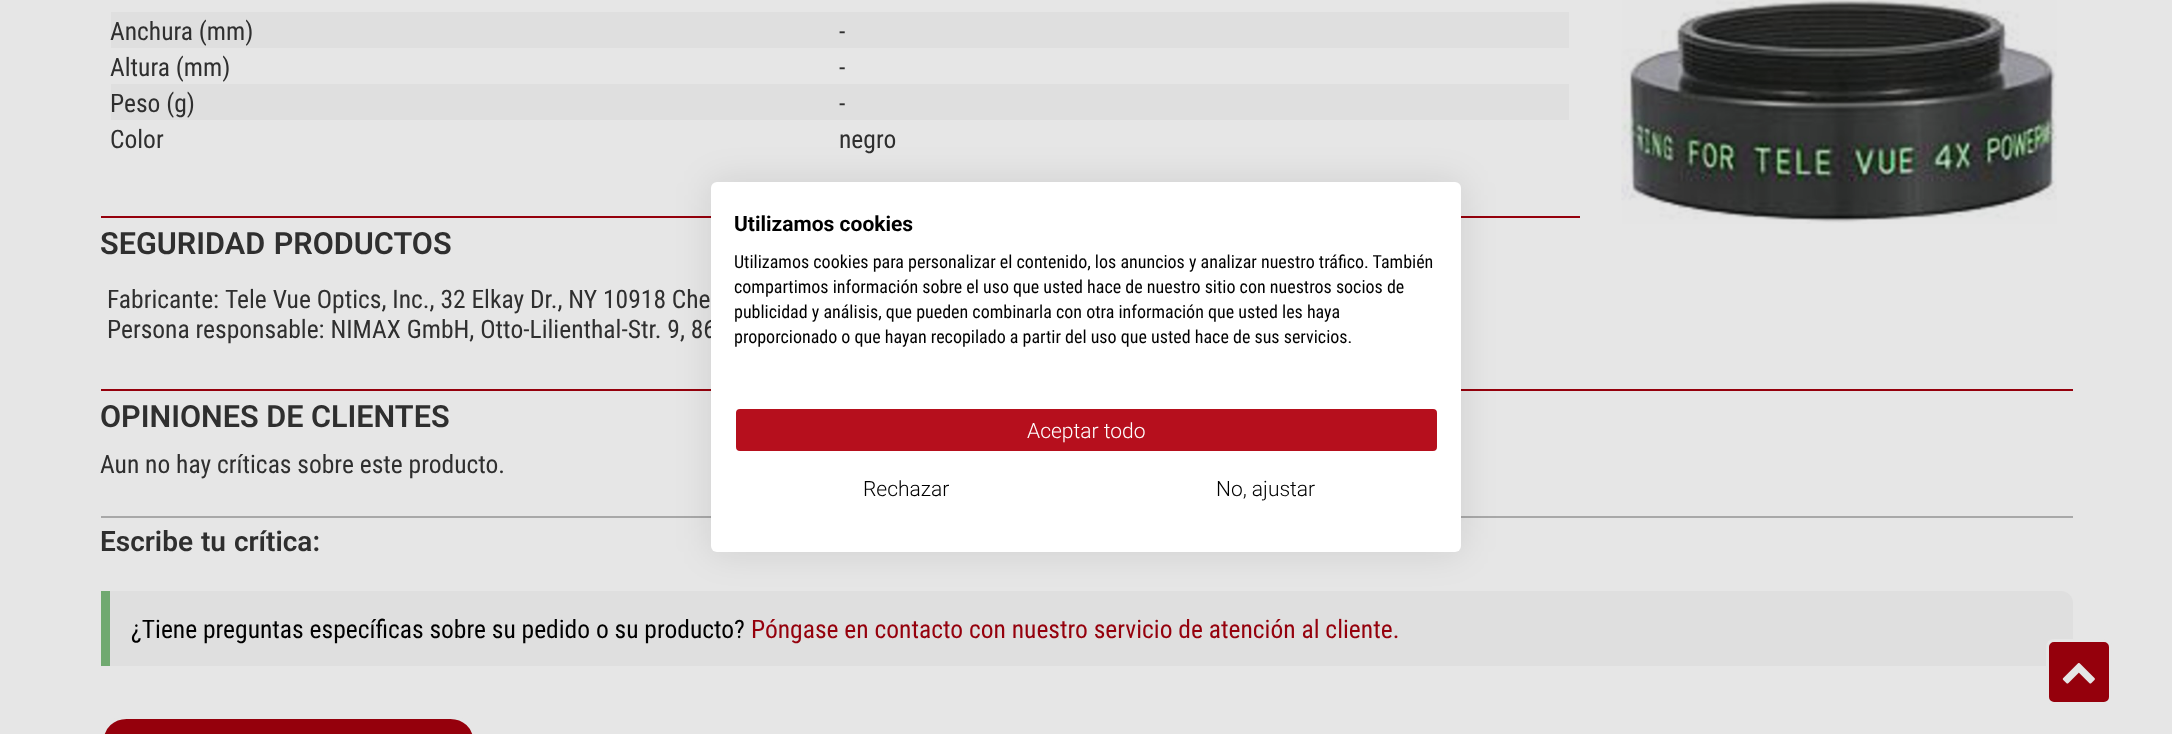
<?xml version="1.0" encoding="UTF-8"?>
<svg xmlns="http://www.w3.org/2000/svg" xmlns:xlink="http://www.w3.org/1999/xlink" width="2172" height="734">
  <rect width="100%" height="100%" fill="#e6e6e6" />
  <rect x="111" y="12" width="1458" height="36" fill="#dfdfdf" />
  <rect x="111" y="84" width="1458" height="36" fill="#dfdfdf" />
  <rect x="101" y="216" width="1479" height="2" fill="#95000c" />
  <image x="1621" y="0" width="436" height="224" xlink:href="image1.png" />
  <rect x="101" y="389" width="1972" height="2" fill="#95000c" />
  <rect x="101" y="516" width="1972" height="2" fill="#a8a8a8" />
  <path d="M 101 591 h 1960 c 6.5 0 12 5.5 12 12 v 51 c 0 6.5 -5.5 12 -12 12 h -1960 z" fill="#dfdfdf" />
  <rect x="101" y="591" width="9" height="75" fill="#70a970" />
  <rect x="102.5" y="717.5" width="372" height="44" rx="24" fill="#95000c" stroke="#e6e6e6" stroke-width="3" />
  <rect x="711" y="182" width="750" height="370" rx="6" fill="#000000" fill-opacity="0.1" filter="blur(18px)" />
  <rect x="2047.5" y="640.5" width="63" height="63" rx="6.5" fill="#95000c" stroke="#e6e6e6" stroke-width="3" />
  <image x="2062" y="663" width="33" height="21" xlink:href="image2.png" />
  <text x="110" y="40" style="font-family: Roboto Condensed; font-size: 25.5px; fill: #2f2f2f">Anchura (mm)</text>
  <text x="839" y="40" style="font-family: Roboto Condensed; font-size: 25.5px; fill: #2f2f2f">-</text>
  <text x="110" y="76" style="font-family: Roboto Condensed; font-size: 25.5px; fill: #2f2f2f">Altura (mm)</text>
  <text x="839" y="76" style="font-family: Roboto Condensed; font-size: 25.5px; fill: #2f2f2f">-</text>
  <text x="110" y="112" style="font-family: Roboto Condensed; font-size: 25.5px; fill: #2f2f2f">Peso (g)</text>
  <text x="839" y="112" style="font-family: Roboto Condensed; font-size: 25.5px; fill: #2f2f2f">-</text>
  <text x="110" y="148" style="font-family: Roboto Condensed; font-size: 25.5px; fill: #2f2f2f">Color</text>
  <text x="839" y="148" style="font-family: Roboto Condensed; font-size: 25.5px; fill: #2f2f2f">negro</text>
  <text x="100" y="254" word-spacing="1" style="font-family: Roboto; font-size: 30.6px; font-weight: 600; fill: #2f2f2f">SEGURIDAD PRODUCTOS</text>
  <text x="107" y="308" style="font-family: Roboto Condensed; font-size: 25.5px; fill: #2f2f2f">Fabricante:</text>
  <text x="225" y="308" style="font-family: Roboto Condensed; font-size: 25.5px; fill: #2f2f2f">Tele Vue Optics, Inc., 32 Elkay Dr., NY 10918 Che</text>
  <text x="107" y="338" style="font-family: Roboto Condensed; font-size: 25.5px; fill: #2f2f2f">Persona responsable: NIMAX GmbH, Otto-Lilienthal-Str. 9, 86</text>
  <text x="100" y="427" style="font-family: Roboto; font-size: 30.6px; font-weight: 600; fill: #2f2f2f">OPINIONES DE CLIENTES</text>
  <text x="100" y="473" style="font-family: Roboto Condensed; font-size: 25.5px; fill: #2f2f2f">Aun no hay críticas sobre este producto.</text>
  <text x="100" y="551" word-spacing="1" style="font-family: Roboto; font-size: 28px; font-weight: 600; fill: #2f2f2f">Escribe tu crítica:</text>
  <text x="131" y="638" style="font-family: Roboto Condensed; font-size: 25.5px; fill: #000000">¿Tiene preguntas específicas sobre su pedido o su producto?</text>
  <text x="751" y="638" style="font-family: Roboto Condensed; font-size: 25.5px; fill: #95000c">Póngase en contacto con nuestro servicio de atención al cliente.</text>
  <rect x="711" y="182" width="750" height="370" rx="6" fill="#ffffff" />
  <text x="734" y="231" style="font-family: Roboto; font-size: 21px; font-weight: bold; fill: #000000">Utilizamos cookies</text>
  <text x="734" y="268" style="font-family: Roboto Condensed; font-size: 18px; fill: #000000">Utilizamos cookies para personalizar el contenido, los anuncios y analizar nuestro tráfico. También</text>
  <text x="734" y="293" style="font-family: Roboto Condensed; font-size: 18px; fill: #000000">compartimos información sobre el uso que usted hace de nuestro sitio con nuestros socios de</text>
  <text x="734" y="318" style="font-family: Roboto Condensed; font-size: 18px; fill: #000000">publicidad y análisis, que pueden combinarla con otra información que usted les haya</text>
  <text x="734" y="343" style="font-family: Roboto Condensed; font-size: 18px; fill: #000000">proporcionado o que hayan recopilado a partir del uso que usted hace de sus servicios.</text>
  <rect x="735" y="408" width="703" height="44" rx="5" fill="#b60f1d" stroke="#ffffff" stroke-width="2" />
  <text x="1027" y="438" style="font-family: Roboto; font-size: 21px; font-weight: 300; fill: #ffffff">Aceptar todo</text>
  <text x="863" y="496" style="font-family: Roboto; font-size: 21px; font-weight: 300; fill: #000000">Rechazar</text>
  <text x="1216" y="496" style="font-family: Roboto; font-size: 21px; font-weight: 300; fill: #000000">No, ajustar</text>
</svg>
